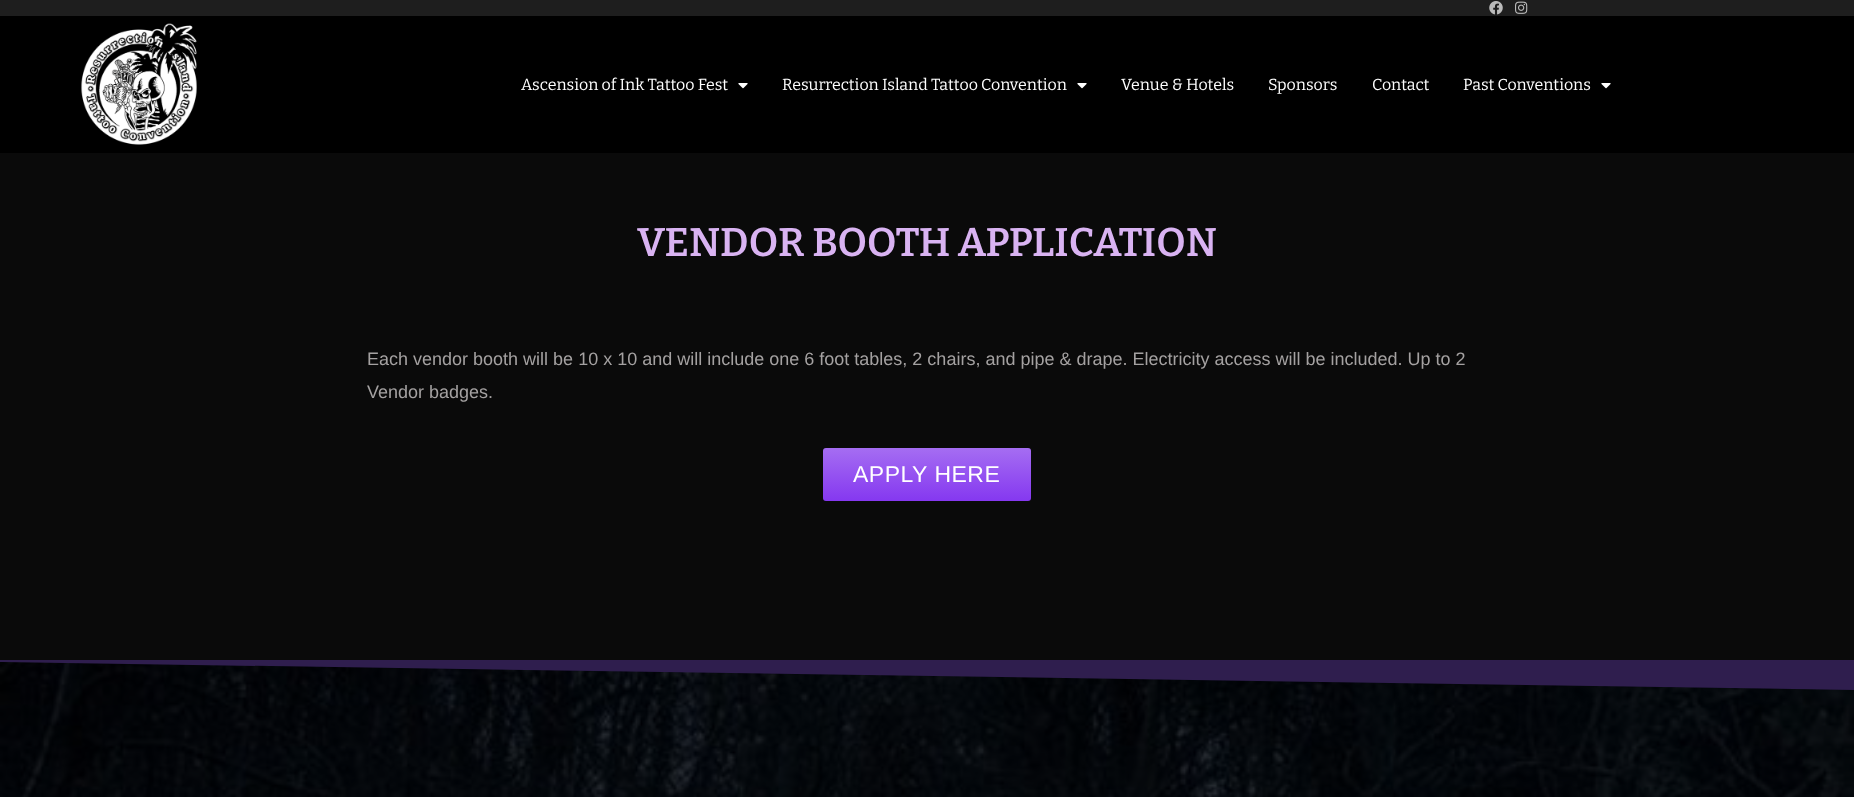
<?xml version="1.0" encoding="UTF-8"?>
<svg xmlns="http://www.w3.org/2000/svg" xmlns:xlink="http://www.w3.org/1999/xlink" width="1854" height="797">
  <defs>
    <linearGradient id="g1" gradientUnits="userSpaceOnUse" x1="927" y1="448" x2="927" y2="501"><stop offset="0" stop-color="#a56df2" /><stop offset="1" stop-color="#8538f0" /></linearGradient>
  </defs>
  <rect width="100%" height="100%" fill="#0a0a0a" />
  <rect width="1854" height="16" fill="#1e1e1e" />
  <image x="1489" y="1" width="14" height="14" xlink:href="image1.png" />
  <image x="1515" y="1" width="13" height="13" xlink:href="image2.png" />
  <rect y="16" width="1854" height="137" fill="#000000" />
  <image x="81" y="23" width="116" height="122" xlink:href="image3.png" />
  <image x="738" y="83" width="10" height="6" xlink:href="image4.png" />
  <image x="1077" y="83" width="10" height="6" xlink:href="image4.png" />
  <image x="1601" y="83" width="10" height="6" xlink:href="image4.png" />
  <rect x="823" y="448" width="208" height="53" rx="3" fill="url(#g1)" />
  <image x="0" y="662" width="1854" height="135" xlink:href="image5.png" />
  <path d="M -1 662 v -2 h 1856 v 30 z" fill="#2f1e4e" />
  <text x="521" y="90" style="font-family: Bitter; font-size: 16px; fill: #ffffff">Ascension of Ink Tattoo Fest</text>
  <text x="782" y="90" style="font-family: Bitter; font-size: 16px; fill: #ffffff">Resurrection Island Tattoo Convention</text>
  <text x="1121" y="90" style="font-family: Bitter; font-size: 16px; fill: #ffffff">Venue &amp; Hotels</text>
  <text x="1268" y="90" style="font-family: Bitter; font-size: 16px; fill: #ffffff">Sponsors</text>
  <text x="1372" y="90" style="font-family: Bitter; font-size: 16px; fill: #ffffff">Contact</text>
  <text x="1463" y="90" style="font-family: Bitter; font-size: 16px; fill: #ffffff">Past Conventions</text>
  <text x="637" y="256" style="font-family: Bitter; font-size: 40px; font-weight: 600; fill: #d9b3f2">VENDOR BOOTH APPLICATION</text>
  <text x="367" y="365" style="font-family: Liberation Sans; font-size: 18px; fill: #a4a1a1">Each vendor booth will be 10 x 10 and will include one 6 foot tables, 2 chairs, and pipe &amp; drape. Electricity access will be included. Up to 2</text>
  <text x="367" y="398" style="font-family: Liberation Sans; font-size: 18px; fill: #a4a1a1">Vendor badges.</text>
  <text x="853" y="482" style="font-family: Liberation Sans; font-size: 23px; letter-spacing: 0.5px; fill: #ffffff">APPLY HERE</text>
</svg>
